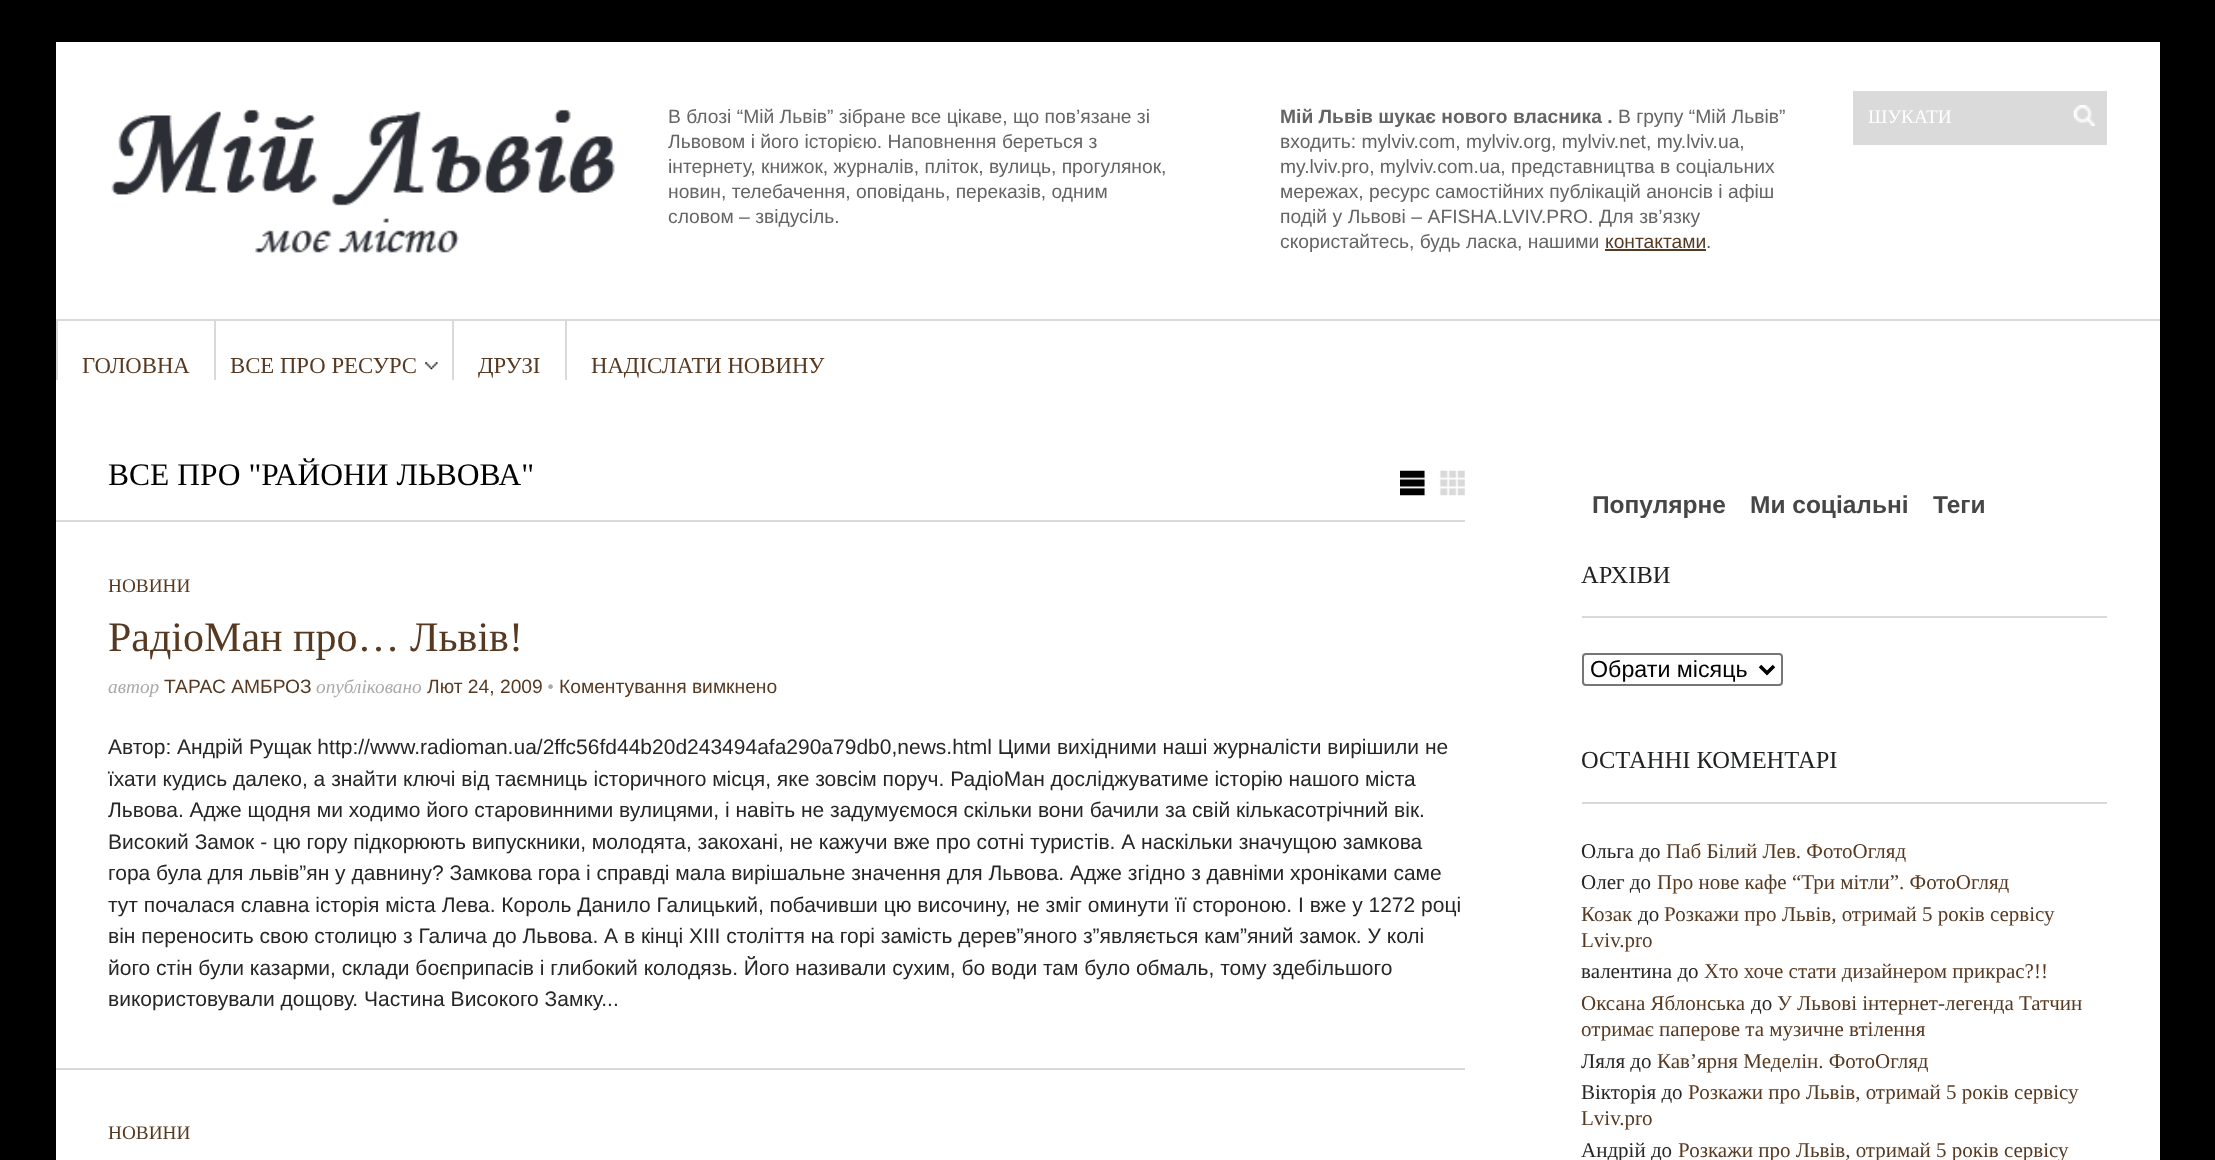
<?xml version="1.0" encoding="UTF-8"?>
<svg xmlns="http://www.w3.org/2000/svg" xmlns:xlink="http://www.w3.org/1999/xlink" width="2215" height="1160">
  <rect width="100%" height="100%" fill="#000000" />
  <rect x="56" y="42" width="2104" height="1118" fill="#ffffff" />
  <image x="111" y="109" width="504" height="144" xlink:href="image1.png" />
  <rect x="1605" y="249" width="101" height="2" fill="#573921" />
  <rect x="1853" y="91" width="254" height="54" fill="#dadada" />
  <image x="2073" y="105" width="22" height="21" xlink:href="image2.png" />
  <rect x="56" y="319" width="2104" height="2" fill="#d9d9d9" />
  <rect x="56" y="320" width="2" height="60" fill="#d9d9d9" />
  <rect x="214" y="320" width="2" height="60" fill="#d9d9d9" />
  <image x="425" y="362" width="13" height="8" xlink:href="image3.png" />
  <rect x="452" y="320" width="2" height="60" fill="#d9d9d9" />
  <rect x="565" y="320" width="2" height="60" fill="#d9d9d9" />
  <rect x="56" y="520" width="1409" height="2" fill="#d9d9d9" />
  <image x="1400" y="470" width="65" height="26" xlink:href="image4.png" />
  <rect x="56" y="1068" width="1409" height="2" fill="#d9d9d9" />
  <rect x="1582" y="616" width="525" height="2" fill="#d9d9d9" />
  <rect x="1583" y="654" width="199" height="31" rx="3" fill="none" stroke="#767676" stroke-width="2" />
  <path d="M 1760 666 l 7 7 l 7 -7" fill="none" stroke="#000000" stroke-width="3.5" />
  <rect x="1582" y="802" width="525" height="2" fill="#d9d9d9" />
  <text x="668" y="123" style="font-family: Liberation Sans; font-size: 19.25px; fill: #656363">В блозі “Мій Львів” зібране все цікаве, що пов’язане зі</text>
  <text x="668" y="148" style="font-family: Liberation Sans; font-size: 19.25px; fill: #656363">Львовом і його історією. Наповнення береться з</text>
  <text x="668" y="173" style="font-family: Liberation Sans; font-size: 19.25px; fill: #656363">інтернету, книжок, журналів, пліток, вулиць, прогулянок,</text>
  <text x="668" y="198" style="font-family: Liberation Sans; font-size: 19.25px; fill: #656363">новин, телебачення, оповідань, переказів, одним</text>
  <text x="668" y="223" style="font-family: Liberation Sans; font-size: 19.25px; fill: #656363">словом – звідусіль.</text>
  <text x="1280" y="123" style="font-family: Liberation Sans; font-size: 19.25px; font-weight: bold; fill: #656363">Мій Львів шукає нового власника .</text>
  <text x="1618" y="123" style="font-family: Liberation Sans; font-size: 19.25px; fill: #656363">В групу “Мій Львів”</text>
  <text x="1280" y="148" style="font-family: Liberation Sans; font-size: 19.25px; fill: #656363">входить: mylviv.com, mylviv.org, mylviv.net, my.lviv.ua,</text>
  <text x="1280" y="173" style="font-family: Liberation Sans; font-size: 19.25px; fill: #656363">my.lviv.pro, mylviv.com.ua, представництва в соціальних</text>
  <text x="1280" y="198" style="font-family: Liberation Sans; font-size: 19.25px; fill: #656363">мережах, ресурс самостійних публікацій анонсів і афіш</text>
  <text x="1280" y="223" word-spacing="0.25" style="font-family: Liberation Sans; font-size: 19.25px; fill: #656363">подій у Львові – AFISHA.LVIV.PRO. Для зв’язку</text>
  <text x="1280" y="248" style="font-family: Liberation Sans; font-size: 19.25px; fill: #656363">скористайтесь, будь ласка, нашими</text>
  <text x="1605" y="248" style="font-family: Liberation Sans; font-size: 19.25px; fill: #573921">контактами</text>
  <text x="1706" y="248" style="font-family: Liberation Sans; font-size: 19.25px; fill: #656363">.</text>
  <text x="1868" y="123" style="font-family: Liberation Serif; font-size: 19.25px; fill: #ffffff">ШУКАТИ</text>
  <text x="82" y="373" style="font-family: Liberation Serif; font-size: 22.75px; fill: #573921">ГОЛОВНА</text>
  <text x="230" y="373" style="font-family: Liberation Serif; font-size: 22.75px; fill: #573921">ВСЕ ПРО РЕСУРС</text>
  <text x="478" y="373" style="font-family: Liberation Serif; font-size: 22.75px; fill: #573921">ДРУЗІ</text>
  <text x="591" y="373" style="font-family: Liberation Serif; font-size: 22.75px; fill: #573921">НАДІСЛАТИ НОВИНУ</text>
  <text x="108" y="485" style="font-family: Liberation Serif; font-size: 31.5px; fill: #000000">ВСЕ ПРО "РАЙОНИ ЛЬВОВА"</text>
  <text x="108" y="592" style="font-family: Liberation Serif; font-size: 19.25px; fill: #573921">НОВИНИ</text>
  <text x="108" y="651" style="font-family: Liberation Serif; font-size: 42px; fill: #573921">РадіоМан про… Львів!</text>
  <text x="108" y="693" style="font-family: Liberation Serif; font-size: 19.25px; font-style: italic; fill: #aaa9a9">автор</text>
  <text x="164" y="693" style="font-family: Liberation Sans; font-size: 19.25px; fill: #573921">ТАРАС АМБРОЗ</text>
  <text x="316" y="693" style="font-family: Liberation Serif; font-size: 19.25px; font-style: italic; fill: #aaa9a9">опубліковано</text>
  <text x="427" y="693" style="font-family: Liberation Sans; font-size: 19.25px; fill: #573921">Лют 24, 2009</text>
  <text x="547" y="693" style="font-family: Liberation Serif; font-size: 19.25px; font-style: italic; fill: #aaa9a9">•</text>
  <text x="559" y="693" style="font-family: Liberation Sans; font-size: 19.25px; fill: #573921">Коментування вимкнено</text>
  <text x="108" y="754" style="font-family: Liberation Sans; font-size: 21px; fill: #262626">Автор: Андрій Рущак http://www.radioman.ua/2ffc56fd44b20d243494afa290a79db0,news.html Цими вихідними наші журналісти вирішили не</text>
  <text x="108" y="786" style="font-family: Liberation Sans; font-size: 21px; fill: #262626">їхати кудись далеко, а знайти ключі від таємниць історичного місця, яке зовсім поруч. РадіоМан досліджуватиме історію нашого міста</text>
  <text x="108" y="817" style="font-family: Liberation Sans; font-size: 21px; fill: #262626">Львова. Адже щодня ми ходимо його старовинними вулицями, і навіть не задумуємося скільки вони бачили за свій кількасотрічний вік.</text>
  <text x="108" y="849" style="font-family: Liberation Sans; font-size: 21px; fill: #262626">Високий Замок - цю гору підкорюють випускники, молодята, закохані, не кажучи вже про сотні туристів. А наскільки значущою замкова</text>
  <text x="108" y="880" style="font-family: Liberation Sans; font-size: 21px; fill: #262626">гора була для львів”ян у давнину? Замкова гора і справді мала вирішальне значення для Львова. Адже згідно з давніми хроніками саме</text>
  <text x="108" y="912" style="font-family: Liberation Sans; font-size: 21px; fill: #262626">тут почалася славна історія міста Лева. Король Данило Галицький, побачивши цю височину, не зміг оминути її стороною. І вже у 1272 році</text>
  <text x="108" y="943" style="font-family: Liberation Sans; font-size: 21px; fill: #262626">він переносить свою столицю з Галича до Львова. А в кінці ХІІІ століття на горі замість дерев”яного з”являється кам”яний замок. У колі</text>
  <text x="108" y="975" style="font-family: Liberation Sans; font-size: 21px; fill: #262626">його стін були казарми, склади боєприпасів і глибокий колодязь. Його називали сухим, бо води там було обмаль, тому здебільшого</text>
  <text x="108" y="1006" style="font-family: Liberation Sans; font-size: 21px; fill: #262626">використовували дощову. Частина Високого Замку...</text>
  <text x="108" y="1139" style="font-family: Liberation Serif; font-size: 19.25px; fill: #573921">НОВИНИ</text>
  <text x="1592" y="513" style="font-family: Liberation Sans; font-size: 24.5px; font-weight: bold; fill: #464646">Популярне</text>
  <text x="1750" y="513" style="font-family: Liberation Sans; font-size: 24.5px; font-weight: bold; fill: #464646">Ми соціальні</text>
  <text x="1933" y="513" style="font-family: Liberation Sans; font-size: 24.5px; font-weight: bold; fill: #464646">Теги</text>
  <text x="1581" y="583" style="font-family: Liberation Serif; font-size: 24.5px; fill: #1f2122">АРХІВИ</text>
  <text x="1590" y="677" style="font-family: Liberation Sans; font-size: 23.25px; fill: #000000">Обрати місяць</text>
  <text x="1581" y="768" style="font-family: Liberation Serif; font-size: 24.5px; fill: #1f2122">ОСТАННІ КОМЕНТАРІ</text>
  <text x="1581" y="858" style="font-family: Liberation Serif; font-size: 21px; fill: #262626">Ольга до</text>
  <text x="1666" y="858" style="font-family: Liberation Serif; font-size: 21px; fill: #573921">Паб Білий Лев. ФотоОгляд</text>
  <text x="1581" y="889" style="font-family: Liberation Serif; font-size: 21px; fill: #262626">Олег до</text>
  <text x="1657" y="889" style="font-family: Liberation Serif; font-size: 21px; fill: #573921">Про нове кафе “Три мітли”. ФотоОгляд</text>
  <text x="1581" y="921" style="font-family: Liberation Serif; font-size: 21px; fill: #573921">Козак</text>
  <text x="1638" y="921" style="font-family: Liberation Serif; font-size: 21px; fill: #262626">до</text>
  <text x="1664" y="921" style="font-family: Liberation Serif; font-size: 21px; fill: #573921">Розкажи про Львів, отримай 5 років сервісу</text>
  <text x="1581" y="947" style="font-family: Liberation Serif; font-size: 21px; fill: #573921">Lviv.pro</text>
  <text x="1581" y="978" style="font-family: Liberation Serif; font-size: 21px; fill: #262626">валентина до</text>
  <text x="1704" y="978" style="font-family: Liberation Serif; font-size: 21px; fill: #573921">Хто хоче стати дизайнером прикрас?!!</text>
  <text x="1581" y="1010" style="font-family: Liberation Serif; font-size: 21px; fill: #573921">Оксана Яблонська</text>
  <text x="1751" y="1010" style="font-family: Liberation Serif; font-size: 21px; fill: #262626">до</text>
  <text x="1777" y="1010" style="font-family: Liberation Serif; font-size: 21px; fill: #573921">У Львові інтернет-легенда Татчин</text>
  <text x="1581" y="1036" style="font-family: Liberation Serif; font-size: 21px; fill: #573921">отримає паперове та музичне втілення</text>
  <text x="1581" y="1068" style="font-family: Liberation Serif; font-size: 21px; fill: #262626">Ляля до</text>
  <text x="1657" y="1068" style="font-family: Liberation Serif; font-size: 21px; fill: #573921">Кав’ярня Меделін. ФотоОгляд</text>
  <text x="1581" y="1099" style="font-family: Liberation Serif; font-size: 21px; fill: #262626">Вікторія до</text>
  <text x="1688" y="1099" style="font-family: Liberation Serif; font-size: 21px; fill: #573921">Розкажи про Львів, отримай 5 років сервісу</text>
  <text x="1581" y="1125" style="font-family: Liberation Serif; font-size: 21px; fill: #573921">Lviv.pro</text>
  <text x="1581" y="1157" style="font-family: Liberation Serif; font-size: 21px; fill: #262626">Андрій до</text>
  <text x="1678" y="1157" style="font-family: Liberation Serif; font-size: 21px; fill: #573921">Розкажи про Львів, отримай 5 років сервісу</text>
</svg>
